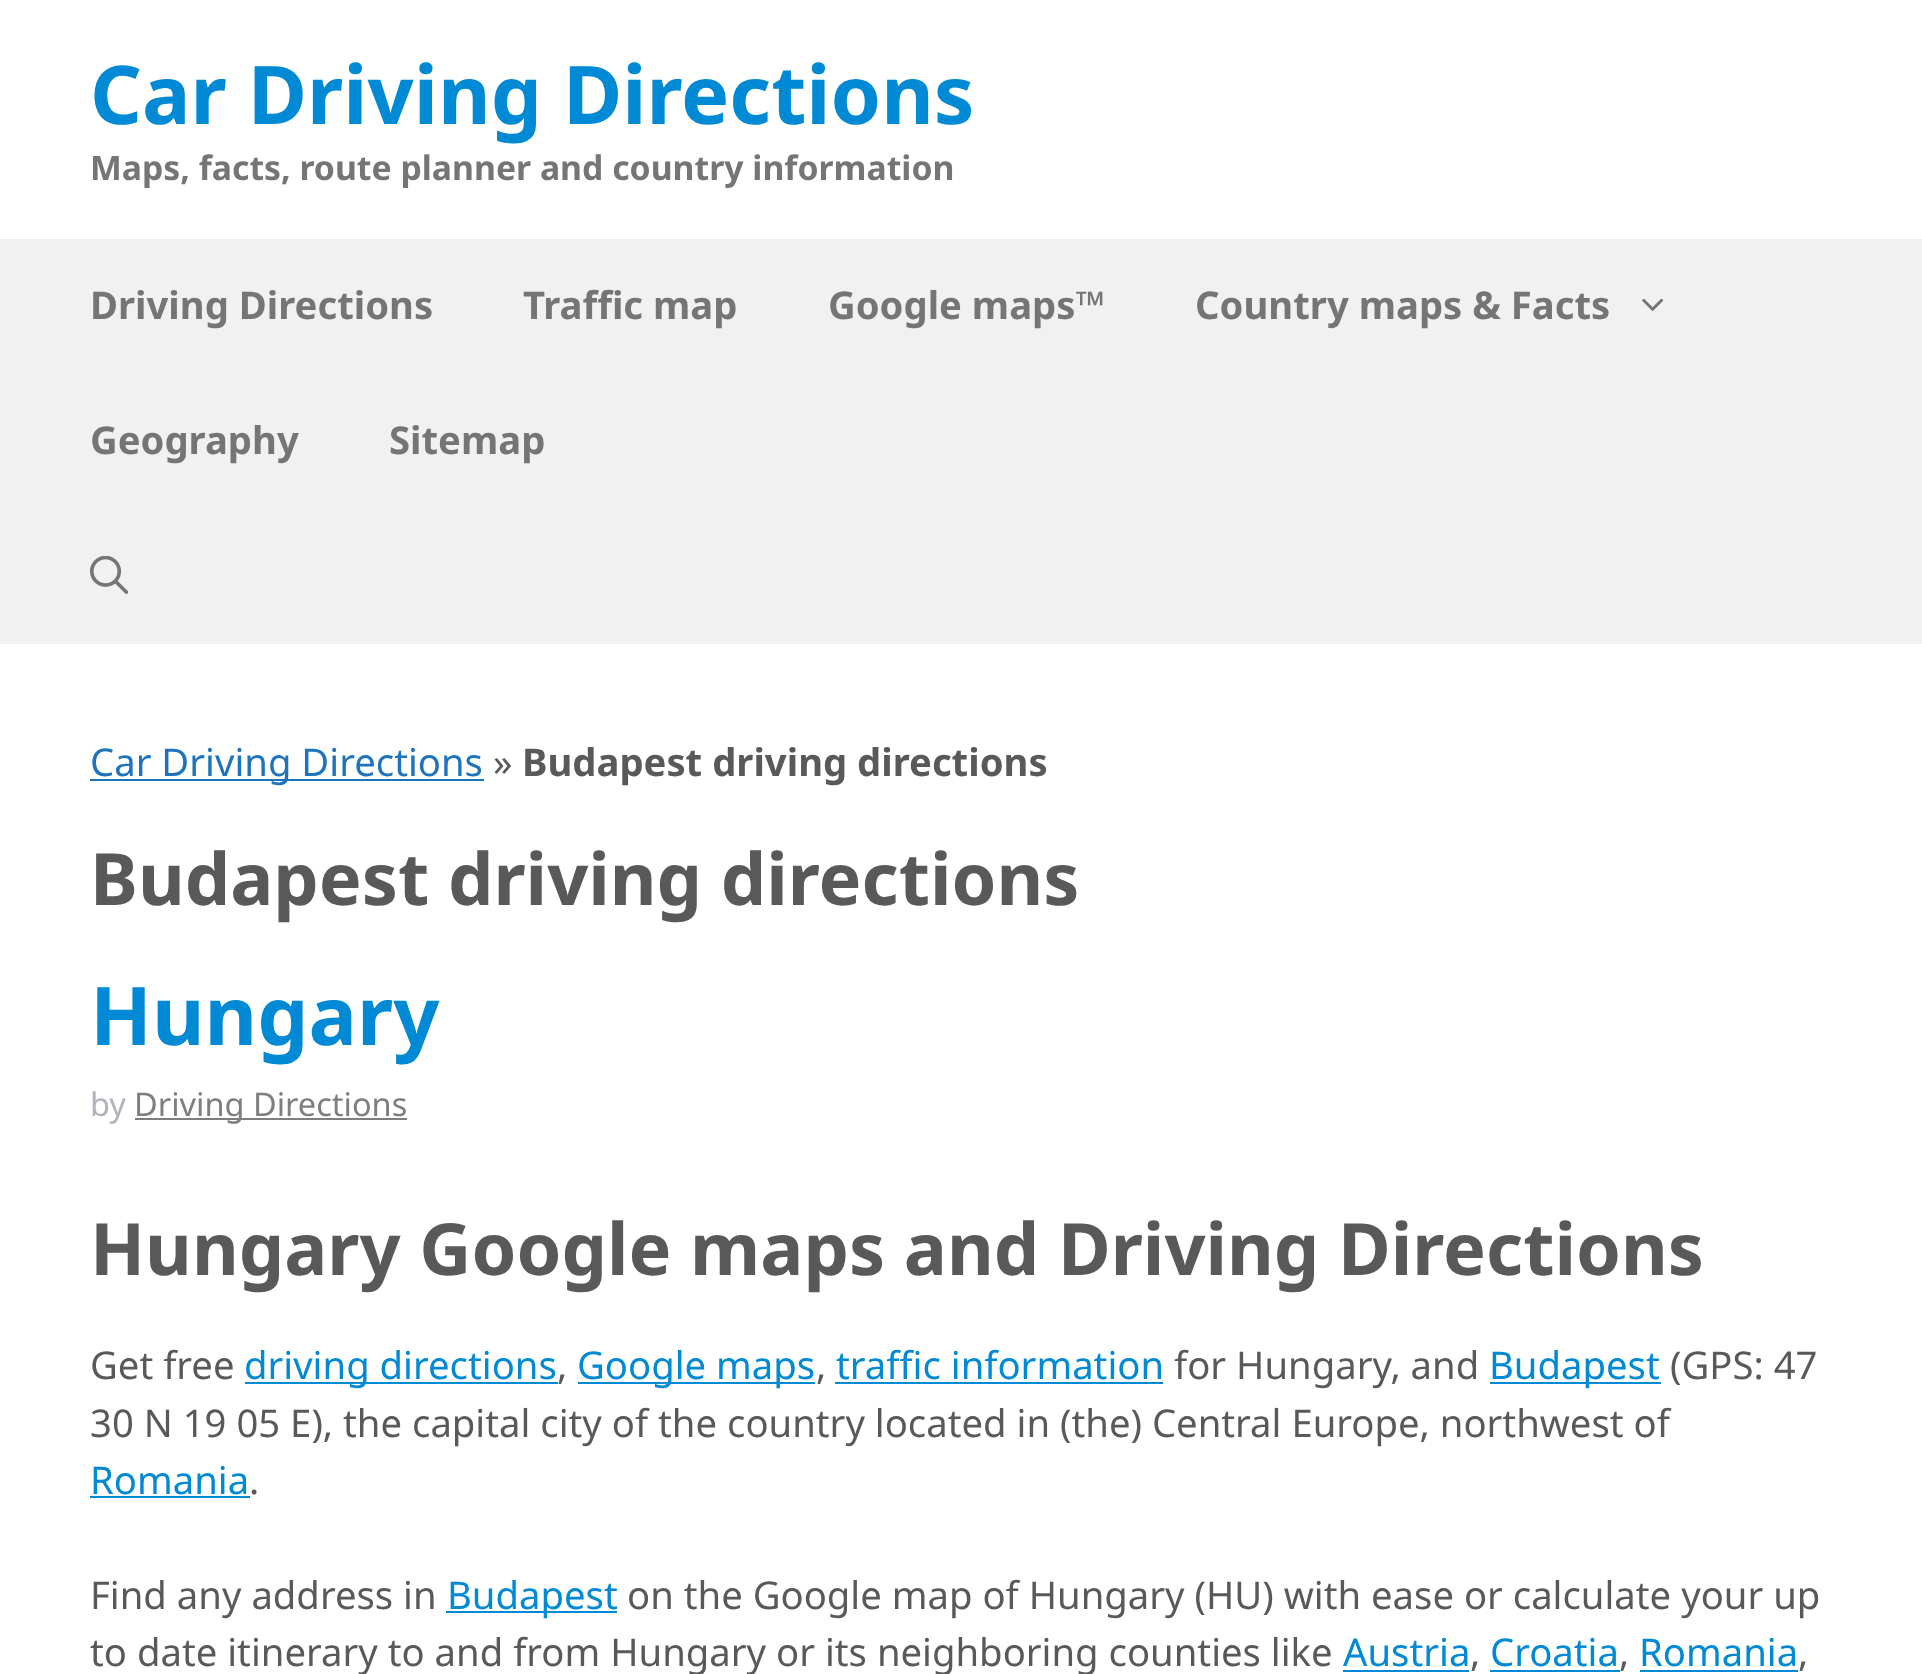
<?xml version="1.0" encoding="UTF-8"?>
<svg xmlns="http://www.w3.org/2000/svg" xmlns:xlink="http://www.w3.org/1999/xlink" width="1922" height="1674">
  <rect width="100%" height="100%" fill="#ffffff" />
  <rect y="239" width="1922" height="405" fill="#f1f1f1" />
  <image x="1642" y="298" width="22" height="13" xlink:href="image1.png" />
  <image x="90" y="556" width="38" height="38" xlink:href="image2.png" />
  <rect x="90" y="779" width="394" height="2" fill="#1e73be" />
  <rect x="135" y="1118" width="272" height="2" fill="#7e7e7e" />
  <rect x="245" y="1382" width="313" height="2" fill="#0089d5" />
  <rect x="578" y="1382" width="237" height="2" fill="#0089d5" />
  <rect x="835" y="1382" width="328" height="2" fill="#0089d5" />
  <rect x="1490" y="1382" width="171" height="2" fill="#0089d5" />
  <rect x="90" y="1496" width="160" height="2" fill="#0089d5" />
  <rect x="446" y="1611" width="171" height="2" fill="#0089d5" />
  <rect x="1343" y="1670" width="126" height="2" fill="#0089d5" />
  <rect x="1490" y="1670" width="130" height="2" fill="#0089d5" />
  <rect x="1640" y="1670" width="158" height="2" fill="#0089d5" />
  <text x="90" y="124" style="font-family: Noto Sans; font-size: 81px; font-weight: bold; fill: #0089d5">Car Driving Directions</text>
  <text x="90" y="180" style="font-family: Noto Sans; font-size: 33.75px; font-weight: bold; fill: #757575">Maps, facts, route planner and country information</text>
  <text x="90" y="319" style="font-family: Noto Sans; font-size: 38.25px; font-weight: bold; fill: #757575">Driving Directions</text>
  <text x="523" y="319" style="font-family: Noto Sans; font-size: 38.25px; font-weight: bold; fill: #757575">Traffic map</text>
  <text x="828" y="319" style="font-family: Noto Sans; font-size: 38.25px; font-weight: bold; fill: #757575">Google maps™</text>
  <text x="1195" y="319" style="font-family: Noto Sans; font-size: 38.25px; font-weight: bold; fill: #757575">Country maps &amp; Facts</text>
  <text x="90" y="454" style="font-family: Noto Sans; font-size: 38.25px; font-weight: bold; fill: #757575">Geography</text>
  <text x="389" y="454" style="font-family: Noto Sans; font-size: 38.25px; font-weight: bold; fill: #757575">Sitemap</text>
  <text x="90" y="776" style="font-family: Noto Sans; font-size: 38.25px; fill: #1e73be">Car Driving Directions</text>
  <text x="493" y="776" style="font-family: Noto Sans; font-size: 38.25px; fill: #595959">»</text>
  <text x="522" y="776" style="font-family: Noto Sans; font-size: 38.25px; font-weight: bold; fill: #595959">Budapest driving directions</text>
  <text x="90" y="905" style="font-family: Noto Sans; font-size: 72px; font-weight: bold; fill: #595959">Budapest driving directions</text>
  <text x="90" y="1045" style="font-family: Noto Sans; font-size: 81px; font-weight: bold; fill: #0089d5">Hungary</text>
  <text x="90" y="1116" style="font-family: Noto Sans; font-size: 32.5px; fill: #b2b2be">by</text>
  <text x="134" y="1116" style="font-family: Noto Sans; font-size: 32.5px; fill: #7e7e7e">Driving Directions</text>
  <text x="90" y="1275" style="font-family: Noto Sans; font-size: 72px; font-weight: bold; fill: #595959">Hungary Google maps and Driving Directions</text>
  <text x="90" y="1379" style="font-family: Noto Sans; font-size: 38.25px; fill: #595959">Get free</text>
  <text x="244" y="1379" style="font-family: Noto Sans; font-size: 38.25px; fill: #0089d5">driving directions</text>
  <text x="557" y="1379" style="font-family: Noto Sans; font-size: 38.25px; fill: #595959">,</text>
  <text x="577" y="1379" style="font-family: Noto Sans; font-size: 38.25px; fill: #0089d5">Google maps</text>
  <text x="816" y="1379" style="font-family: Noto Sans; font-size: 38.25px; fill: #595959">,</text>
  <text x="836" y="1379" style="font-family: Noto Sans; font-size: 38.25px; fill: #0089d5">traffic information</text>
  <text x="1174" y="1379" style="font-family: Noto Sans; font-size: 38.25px; fill: #595959">for Hungary, and</text>
  <text x="1489" y="1379" style="font-family: Noto Sans; font-size: 38.25px; fill: #0089d5">Budapest</text>
  <text x="1670" y="1379" style="font-family: Noto Sans; font-size: 38.25px; fill: #595959">(GPS: 47</text>
  <text x="90" y="1437" style="font-family: Noto Sans; font-size: 38.25px; fill: #595959">30 N 19 05 E), the capital city of the country located in (the) Central Europe, northwest of</text>
  <text x="90" y="1494" style="font-family: Noto Sans; font-size: 38.25px; fill: #0089d5">Romania</text>
  <text x="249" y="1494" style="font-family: Noto Sans; font-size: 38.25px; fill: #595959">.</text>
  <text x="90" y="1609" style="font-family: Noto Sans; font-size: 38.25px; fill: #595959">Find any address in</text>
  <text x="447" y="1609" style="font-family: Noto Sans; font-size: 38.25px; fill: #0089d5">Budapest</text>
  <text x="627" y="1609" style="font-family: Noto Sans; font-size: 38.25px; fill: #595959">on the Google map of Hungary (HU) with ease or calculate your up</text>
  <text x="90" y="1666" style="font-family: Noto Sans; font-size: 38.25px; fill: #595959">to date itinerary to and from Hungary or its neighboring counties like</text>
  <text x="1343" y="1666" style="font-family: Noto Sans; font-size: 38.25px; fill: #0089d5">Austria</text>
  <text x="1470" y="1666" style="font-family: Noto Sans; font-size: 38.25px; fill: #595959">,</text>
  <text x="1490" y="1666" style="font-family: Noto Sans; font-size: 38.25px; fill: #0089d5">Croatia</text>
  <text x="1619" y="1666" style="font-family: Noto Sans; font-size: 38.25px; fill: #595959">,</text>
  <text x="1639" y="1666" style="font-family: Noto Sans; font-size: 38.25px; fill: #0089d5">Romania</text>
  <text x="1798" y="1666" style="font-family: Noto Sans; font-size: 38.25px; fill: #595959">,</text>
</svg>
